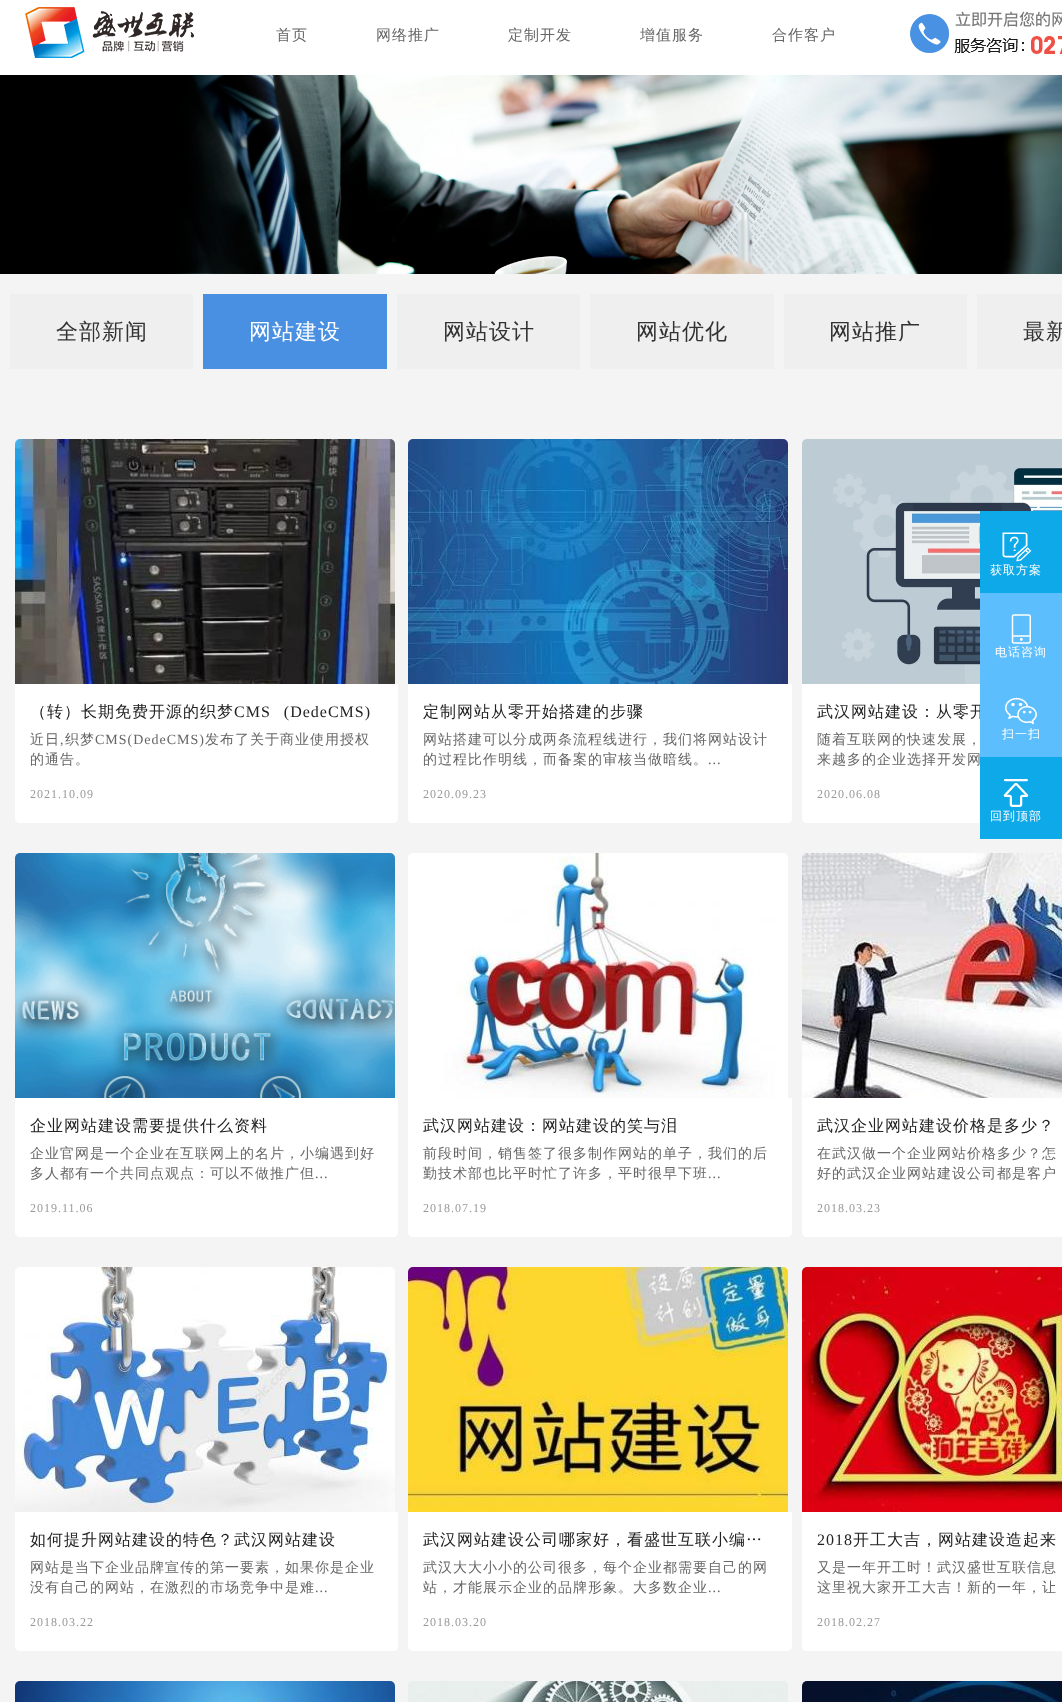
<?xml version="1.0" encoding="UTF-8"?>
<svg xmlns="http://www.w3.org/2000/svg" xmlns:xlink="http://www.w3.org/1999/xlink" width="1062" height="1702">
  <rect width="100%" height="100%" fill="#f4f4f4" />
  <rect width="1062" height="75" fill="#ffffff" />
  <image x="25" y="7" width="169" height="51" xlink:href="image1.png" />
  <image x="910" y="11" width="152" height="43" xlink:href="image2.png" />
  <image x="0" y="75" width="1062" height="199" xlink:href="image3.png" />
  <rect x="10" y="294" width="183" height="75" fill="#efefef" />
  <rect x="203" y="294" width="184" height="75" fill="#4a90e2" />
  <rect x="397" y="294" width="183" height="75" fill="#efefef" />
  <rect x="590" y="294" width="184" height="75" fill="#efefef" />
  <rect x="784" y="294" width="183" height="75" fill="#efefef" />
  <rect x="977" y="294" width="85" height="75" fill="#efefef" />
  <image x="802" y="439" width="260" height="245" xlink:href="image10.png" />
  <rect x="980" y="511" width="82" height="82" fill="#0ea9e9" />
  <image x="1002" y="532" width="30" height="30" xlink:href="image4.png" />
  <path d="M 802 684 h 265 v 134 c 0 3 -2 5 -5 5 h -255 c -3 0 -5 -2 -5 -5 z" fill="#ffffff" />
  <rect x="980" y="757" width="82" height="82" fill="#0ea9e9" />
  <image x="1003" y="779" width="26" height="28" xlink:href="image7.png" />
  <image x="15" y="439" width="380" height="245" xlink:href="image8.png" />
  <path d="M 15 684 h 383 v 134 c 0 3 -2 5 -5 5 h -373 c -3 0 -5 -2 -5 -5 z" fill="#ffffff" />
  <image x="408" y="439" width="380" height="245" xlink:href="image9.png" />
  <path d="M 408 684 h 384 v 134 c 0 3 -2 5 -5 5 h -374 c -3 0 -5 -2 -5 -5 z" fill="#ffffff" />
  <image x="15" y="853" width="380" height="245" xlink:href="image11.png" />
  <path d="M 15 1098 h 383 v 134 c 0 3 -2 5 -5 5 h -373 c -3 0 -5 -2 -5 -5 z" fill="#ffffff" />
  <image x="408" y="853" width="380" height="245" xlink:href="image12.png" />
  <path d="M 408 1098 h 384 v 134 c 0 3 -2 5 -5 5 h -374 c -3 0 -5 -2 -5 -5 z" fill="#ffffff" />
  <image x="802" y="853" width="260" height="245" xlink:href="image13.png" />
  <path d="M 802 1098 h 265 v 134 c 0 3 -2 5 -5 5 h -255 c -3 0 -5 -2 -5 -5 z" fill="#ffffff" />
  <image x="15" y="1267" width="380" height="245" xlink:href="image14.png" />
  <path d="M 15 1512 h 383 v 134 c 0 3 -2 5 -5 5 h -373 c -3 0 -5 -2 -5 -5 z" fill="#ffffff" />
  <image x="408" y="1267" width="380" height="245" xlink:href="image15.png" />
  <path d="M 408 1512 h 384 v 134 c 0 3 -2 5 -5 5 h -374 c -3 0 -5 -2 -5 -5 z" fill="#ffffff" />
  <image x="802" y="1267" width="260" height="245" xlink:href="image16.png" />
  <path d="M 802 1512 h 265 v 134 c 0 3 -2 5 -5 5 h -255 c -3 0 -5 -2 -5 -5 z" fill="#ffffff" />
  <image x="15" y="1681" width="380" height="21" xlink:href="image17.png" />
  <image x="408" y="1681" width="380" height="21" xlink:href="image18.png" />
  <image x="802" y="1681" width="260" height="21" xlink:href="image19.png" />
  <text x="276" y="40" style="font-family: WenQuanYi Zen Hei; font-size: 15px; font-weight: 500; letter-spacing: 1px; fill: #666666">首页</text>
  <text x="376" y="40" style="font-family: WenQuanYi Zen Hei; font-size: 15px; font-weight: 500; letter-spacing: 1px; fill: #666666">网络推广</text>
  <text x="508" y="40" style="font-family: WenQuanYi Zen Hei; font-size: 15px; font-weight: 500; letter-spacing: 1px; fill: #666666">定制开发</text>
  <text x="640" y="40" style="font-family: WenQuanYi Zen Hei; font-size: 15px; font-weight: 500; letter-spacing: 1px; fill: #666666">增值服务</text>
  <text x="772" y="40" style="font-family: WenQuanYi Zen Hei; font-size: 15px; font-weight: 500; letter-spacing: 1px; fill: #666666">合作客户</text>
  <text x="56" y="339" style="font-family: WenQuanYi Zen Hei; font-size: 22px; font-weight: 500; letter-spacing: 1px; fill: #333333">全部新闻</text>
  <text x="249" y="339" style="font-family: WenQuanYi Zen Hei; font-size: 22px; font-weight: 500; letter-spacing: 1px; fill: #ffffff">网站建设</text>
  <text x="443" y="339" style="font-family: WenQuanYi Zen Hei; font-size: 22px; font-weight: 500; letter-spacing: 1px; fill: #333333">网站设计</text>
  <text x="636" y="339" style="font-family: WenQuanYi Zen Hei; font-size: 22px; font-weight: 500; letter-spacing: 1px; fill: #333333">网站优化</text>
  <text x="829" y="339" style="font-family: WenQuanYi Zen Hei; font-size: 22px; font-weight: 500; letter-spacing: 1px; fill: #333333">网站推广</text>
  <text x="1023" y="339" style="font-family: WenQuanYi Zen Hei; font-size: 22px; font-weight: 500; letter-spacing: 1px; fill: #333333">最新</text>
  <text x="990" y="574" style="font-family: WenQuanYi Zen Hei; font-size: 12px; font-weight: 500; letter-spacing: 1px; fill: #ffffff">获取方案</text>
  <text x="990" y="820" style="font-family: WenQuanYi Zen Hei; font-size: 12px; font-weight: 500; letter-spacing: 1px; fill: #ffffff">回到顶部</text>
  <text x="30" y="717" style="font-family: WenQuanYi Zen Hei; font-size: 16px; font-weight: 500; letter-spacing: 1px; fill: #222222">（转）长期免费开源的织梦</text>
  <text x="234" y="717" word-spacing="8" style="font-family: Liberation Serif; font-size: 16px; letter-spacing: 1px; fill: #222222">CMS (DedeCMS)</text>
  <text x="30" y="744" style="font-family: WenQuanYi Zen Hei; font-size: 14px; font-weight: 500; letter-spacing: 1px; fill: #666666">近日</text>
  <text x="60" y="744" style="font-family: Liberation Serif; font-size: 14px; letter-spacing: 1px; fill: #666666">,</text>
  <text x="65" y="744" style="font-family: WenQuanYi Zen Hei; font-size: 14px; font-weight: 500; letter-spacing: 1px; fill: #666666">织梦</text>
  <text x="95" y="744" style="font-family: Liberation Serif; font-size: 14px; letter-spacing: 1px; fill: #666666">CMS(DedeCMS)</text>
  <text x="205" y="744" style="font-family: WenQuanYi Zen Hei; font-size: 14px; font-weight: 500; letter-spacing: 1px; fill: #666666">发布了关于商业使用授权</text>
  <text x="30" y="764" style="font-family: WenQuanYi Zen Hei; font-size: 14px; font-weight: 500; letter-spacing: 1px; fill: #666666">的通告。</text>
  <text x="30" y="798" style="font-family: Liberation Serif; font-size: 12px; letter-spacing: 1px; fill: #999999">2021.10.09</text>
  <text x="423" y="717" style="font-family: WenQuanYi Zen Hei; font-size: 16px; font-weight: 500; letter-spacing: 1px; fill: #222222">定制网站从零开始搭建的步骤</text>
  <text x="423" y="744" style="font-family: WenQuanYi Zen Hei; font-size: 14px; font-weight: 500; letter-spacing: 1px; fill: #666666">网站搭建可以分成两条流程线进行，我们将网站设计</text>
  <text x="423" y="764" style="font-family: WenQuanYi Zen Hei; font-size: 14px; font-weight: 500; letter-spacing: 1px; fill: #666666">的过程比作明线，而备案的审核当做暗线。</text>
  <text x="708" y="764" style="font-family: Liberation Serif; font-size: 14px; letter-spacing: 1px; fill: #666666">...</text>
  <text x="423" y="798" style="font-family: Liberation Serif; font-size: 12px; letter-spacing: 1px; fill: #999999">2020.09.23</text>
  <text x="817" y="717" style="font-family: WenQuanYi Zen Hei; font-size: 16px; font-weight: 500; letter-spacing: 1px; fill: #222222">武汉网站建设：从零开</text>
  <rect x="980" y="593" width="82" height="164" fill="#5cbefd" />
  <text x="1002" y="738" style="font-family: WenQuanYi Zen Hei; font-size: 12px; font-weight: 500; letter-spacing: 1px; fill: #ffffff">扫一扫</text>
  <image x="1005" y="697" width="32" height="28" xlink:href="image6.png" />
  <text x="995" y="656" style="font-family: WenQuanYi Zen Hei; font-size: 12px; font-weight: 500; letter-spacing: 1px; fill: #ffffff">电话咨询</text>
  <image x="1011" y="614" width="20" height="30" xlink:href="image5.png" />
  <text x="817" y="744" style="font-family: WenQuanYi Zen Hei; font-size: 14px; font-weight: 500; letter-spacing: 1px; fill: #666666">随着互联网的快速发展，</text>
  <text x="817" y="764" style="font-family: WenQuanYi Zen Hei; font-size: 14px; font-weight: 500; letter-spacing: 1px; fill: #666666">来越多的企业选择开发网</text>
  <text x="817" y="798" style="font-family: Liberation Serif; font-size: 12px; letter-spacing: 1px; fill: #999999">2020.06.08</text>
  <text x="30" y="1131" style="font-family: WenQuanYi Zen Hei; font-size: 16px; font-weight: 500; letter-spacing: 1px; fill: #222222">企业网站建设需要提供什么资料</text>
  <text x="30" y="1158" style="font-family: WenQuanYi Zen Hei; font-size: 14px; font-weight: 500; letter-spacing: 1px; fill: #666666">企业官网是一个企业在互联网上的名片，小编遇到好</text>
  <text x="30" y="1178" style="font-family: WenQuanYi Zen Hei; font-size: 14px; font-weight: 500; letter-spacing: 1px; fill: #666666">多人都有一个共同点观点：可以不做推广但</text>
  <text x="315" y="1178" style="font-family: Liberation Serif; font-size: 14px; letter-spacing: 1px; fill: #666666">...</text>
  <text x="30" y="1212" style="font-family: Liberation Serif; font-size: 12px; letter-spacing: 1px; fill: #999999">2019.11.06</text>
  <text x="423" y="1131" style="font-family: WenQuanYi Zen Hei; font-size: 16px; font-weight: 500; letter-spacing: 1px; fill: #222222">武汉网站建设：网站建设的笑与泪</text>
  <text x="423" y="1158" style="font-family: WenQuanYi Zen Hei; font-size: 14px; font-weight: 500; letter-spacing: 1px; fill: #666666">前段时间，销售签了很多制作网站的单子，我们的后</text>
  <text x="423" y="1178" style="font-family: WenQuanYi Zen Hei; font-size: 14px; font-weight: 500; letter-spacing: 1px; fill: #666666">勤技术部也比平时忙了许多，平时很早下班</text>
  <text x="708" y="1178" style="font-family: Liberation Serif; font-size: 14px; letter-spacing: 1px; fill: #666666">...</text>
  <text x="423" y="1212" style="font-family: Liberation Serif; font-size: 12px; letter-spacing: 1px; fill: #999999">2018.07.19</text>
  <text x="817" y="1131" style="font-family: WenQuanYi Zen Hei; font-size: 16px; font-weight: 500; letter-spacing: 1px; fill: #222222">武汉企业网站建设价格是多少？</text>
  <text x="817" y="1158" style="font-family: WenQuanYi Zen Hei; font-size: 14px; font-weight: 500; letter-spacing: 1px; fill: #666666">在武汉做一个企业网站价格多少？怎</text>
  <text x="817" y="1178" style="font-family: WenQuanYi Zen Hei; font-size: 14px; font-weight: 500; letter-spacing: 1px; fill: #666666">好的武汉企业网站建设公司都是客户</text>
  <text x="817" y="1212" style="font-family: Liberation Serif; font-size: 12px; letter-spacing: 1px; fill: #999999">2018.03.23</text>
  <text x="30" y="1545" style="font-family: WenQuanYi Zen Hei; font-size: 16px; font-weight: 500; letter-spacing: 1px; fill: #222222">如何提升网站建设的特色？武汉网站建设</text>
  <text x="30" y="1572" style="font-family: WenQuanYi Zen Hei; font-size: 14px; font-weight: 500; letter-spacing: 1px; fill: #666666">网站是当下企业品牌宣传的第一要素，如果你是企业</text>
  <text x="30" y="1592" style="font-family: WenQuanYi Zen Hei; font-size: 14px; font-weight: 500; letter-spacing: 1px; fill: #666666">没有自己的网站，在激烈的市场竞争中是难</text>
  <text x="315" y="1592" style="font-family: Liberation Serif; font-size: 14px; letter-spacing: 1px; fill: #666666">...</text>
  <text x="30" y="1626" style="font-family: Liberation Serif; font-size: 12px; letter-spacing: 1px; fill: #999999">2018.03.22</text>
  <text x="423" y="1545" style="font-family: WenQuanYi Zen Hei; font-size: 16px; font-weight: 500; letter-spacing: 1px; fill: #222222">武汉网站建设公司哪家好，看盛世互联小编…</text>
  <text x="423" y="1572" style="font-family: WenQuanYi Zen Hei; font-size: 14px; font-weight: 500; letter-spacing: 1px; fill: #666666">武汉大大小小的公司很多，每个企业都需要自己的网</text>
  <text x="423" y="1592" style="font-family: WenQuanYi Zen Hei; font-size: 14px; font-weight: 500; letter-spacing: 1px; fill: #666666">站，才能展示企业的品牌形象。大多数企业</text>
  <text x="708" y="1592" style="font-family: Liberation Serif; font-size: 14px; letter-spacing: 1px; fill: #666666">...</text>
  <text x="423" y="1626" style="font-family: Liberation Serif; font-size: 12px; letter-spacing: 1px; fill: #999999">2018.03.20</text>
  <text x="817" y="1545" style="font-family: Liberation Serif; font-size: 16px; letter-spacing: 1px; fill: #222222">2018</text>
  <text x="853" y="1545" style="font-family: WenQuanYi Zen Hei; font-size: 16px; font-weight: 500; letter-spacing: 1px; fill: #222222">开工大吉，网站建设造起来</text>
  <text x="817" y="1572" style="font-family: WenQuanYi Zen Hei; font-size: 14px; font-weight: 500; letter-spacing: 1px; fill: #666666">又是一年开工时！武汉盛世互联信息</text>
  <text x="817" y="1592" style="font-family: WenQuanYi Zen Hei; font-size: 14px; font-weight: 500; letter-spacing: 1px; fill: #666666">这里祝大家开工大吉！新的一年，让</text>
  <text x="817" y="1626" style="font-family: Liberation Serif; font-size: 12px; letter-spacing: 1px; fill: #999999">2018.02.27</text>
</svg>
